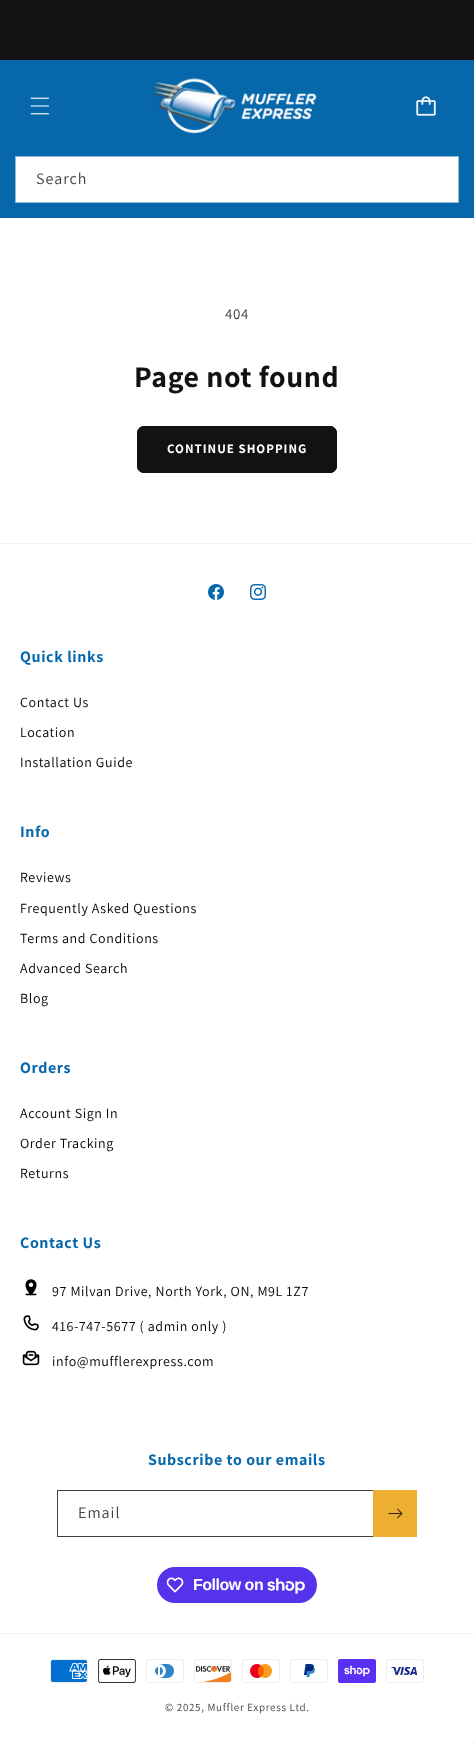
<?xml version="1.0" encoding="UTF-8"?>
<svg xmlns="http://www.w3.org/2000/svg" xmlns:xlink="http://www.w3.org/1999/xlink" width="474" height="1744">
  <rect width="100%" height="100%" fill="#ffffff" />
  <rect width="474" height="60" fill="#121212" />
  <rect y="60" width="474" height="158" fill="#0668ab" />
  <image x="30" y="97" width="20" height="18" xlink:href="image1.png" />
  <image x="151" y="78" width="166" height="56" xlink:href="image2.png" />
  <image x="416" y="96" width="20" height="20" xlink:href="image3.png" />
  <rect x="16" y="157" width="442" height="45" fill="#ffffff" />
  <rect x="15.5" y="156.5" width="443" height="46" fill="none" stroke="#8fbbd9" />
  <rect x="137" y="426" width="200" height="47" rx="7" fill="#121212" />
  <rect x="137.5" y="426.5" width="199" height="46" rx="6.5" fill="none" stroke="#121212" />
  <rect y="543" width="474" height="1" fill="#ebf3f8" />
  <image x="208" y="584" width="16" height="16" xlink:href="image4.png" />
  <image x="250" y="584" width="16" height="16" xlink:href="image5.png" />
  <image x="25" y="1279" width="12" height="17" xlink:href="image6.png" />
  <image x="23" y="1315" width="16" height="16" xlink:href="image7.png" />
  <image x="22" y="1350" width="18" height="16" xlink:href="image8.png" />
  <rect x="57.5" y="1490.5" width="359" height="46" fill="none" stroke="#404040" />
  <rect x="373" y="1490" width="44" height="47" fill="#edaf32" />
  <image x="388" y="1508" width="15" height="11" xlink:href="image9.png" />
  <rect x="157" y="1567" width="160" height="36" rx="18" fill="#5433eb" />
  <image x="166" y="1577" width="18" height="16" xlink:href="image10.png" />
  <image x="267" y="1578" width="38" height="16" xlink:href="image11.png" />
  <rect y="1633" width="474" height="1" fill="#ebf3f8" />
  <image x="50" y="1659" width="38" height="24" xlink:href="image12.png" />
  <image x="98" y="1659" width="38" height="24" xlink:href="image13.png" />
  <image x="146" y="1659" width="38" height="24" xlink:href="image14.png" />
  <image x="194" y="1659" width="38" height="24" xlink:href="image15.png" />
  <image x="242" y="1659" width="38" height="24" xlink:href="image16.png" />
  <image x="290" y="1659" width="38" height="24" xlink:href="image17.png" />
  <image x="338" y="1659" width="38" height="24" xlink:href="image18.png" />
  <image x="386" y="1659" width="38" height="24" xlink:href="image19.png" />
  <rect x="472" y="1742" width="2" height="2" fill="#f5f5f5" />
  <text x="36" y="184" style="font-family: Assistant; font-size: 16px; letter-spacing: 1px; fill: #404040">Search</text>
  <text x="225" y="319" style="font-family: Assistant; font-size: 15px; letter-spacing: 0.6px; fill: #404040">404</text>
  <text x="134" y="387" style="font-family: Assistant; font-size: 30px; font-weight: bold; letter-spacing: 0.6px; fill: #121212">Page not found</text>
  <text x="167" y="453" style="font-family: Assistant; font-size: 13px; font-weight: bold; letter-spacing: 1px; fill: #ffffff">CONTINUE SHOPPING</text>
  <text x="20" y="662" style="font-family: Assistant; font-size: 16px; font-weight: bold; letter-spacing: 0.6px; fill: #0668ab">Quick links</text>
  <text x="20" y="707" style="font-family: Assistant; font-size: 14px; letter-spacing: 0.6px; fill: #000000">Contact Us</text>
  <text x="20" y="737" style="font-family: Assistant; font-size: 14px; letter-spacing: 0.6px; fill: #000000">Location</text>
  <text x="20" y="767" style="font-family: Assistant; font-size: 14px; letter-spacing: 0.6px; fill: #000000">Installation Guide</text>
  <text x="20" y="837" style="font-family: Assistant; font-size: 16px; font-weight: bold; letter-spacing: 0.6px; fill: #0668ab">Info</text>
  <text x="20" y="882" style="font-family: Assistant; font-size: 14px; letter-spacing: 0.6px; fill: #000000">Reviews</text>
  <text x="20" y="913" style="font-family: Assistant; font-size: 14px; letter-spacing: 0.6px; fill: #000000">Frequently Asked Questions</text>
  <text x="20" y="943" style="font-family: Assistant; font-size: 14px; letter-spacing: 0.6px; fill: #000000">Terms and Conditions</text>
  <text x="20" y="973" style="font-family: Assistant; font-size: 14px; letter-spacing: 0.6px; fill: #000000">Advanced Search</text>
  <text x="20" y="1003" style="font-family: Assistant; font-size: 14px; letter-spacing: 0.6px; fill: #000000">Blog</text>
  <text x="20" y="1073" style="font-family: Assistant; font-size: 16px; font-weight: bold; letter-spacing: 0.6px; fill: #0668ab">Orders</text>
  <text x="20" y="1118" style="font-family: Assistant; font-size: 14px; letter-spacing: 0.6px; fill: #000000">Account Sign In</text>
  <text x="20" y="1148" style="font-family: Assistant; font-size: 14px; letter-spacing: 0.6px; fill: #000000">Order Tracking</text>
  <text x="20" y="1178" style="font-family: Assistant; font-size: 14px; letter-spacing: 0.6px; fill: #000000">Returns</text>
  <text x="20" y="1248" style="font-family: Assistant; font-size: 16px; font-weight: bold; letter-spacing: 0.6px; fill: #0668ab">Contact Us</text>
  <text x="52" y="1296" style="font-family: Assistant; font-size: 14px; letter-spacing: 0.6px; fill: #000000">97 Milvan Drive, North York, ON, M9L 1Z7</text>
  <text x="52" y="1331" style="font-family: Assistant; font-size: 14px; letter-spacing: 0.6px; fill: #000000">416-747-5677 ( admin only )</text>
  <text x="52" y="1366" style="font-family: Assistant; font-size: 14px; letter-spacing: 0.6px; fill: #000000">info@mufflerexpress.com</text>
  <text x="148" y="1465" style="font-family: Assistant; font-size: 16px; font-weight: bold; letter-spacing: 0.6px; fill: #0668ab">Subscribe to our emails</text>
  <text x="78" y="1518" style="font-family: Assistant; font-size: 16px; letter-spacing: 1px; fill: #404040">Email</text>
  <text x="193" y="1590" style="font-family: Liberation Sans; font-size: 16px; font-weight: bold; letter-spacing: -0.5px; fill: #ffffff">Follow on</text>
  <text x="165" y="1711" style="font-family: Assistant; font-size: 11px; letter-spacing: 0.7px; fill: #404040">© 2025, Muffler Express Ltd.</text>
</svg>
